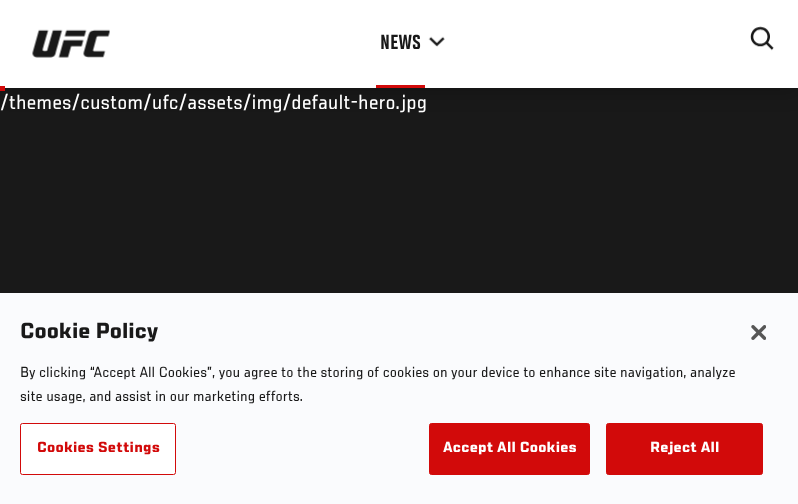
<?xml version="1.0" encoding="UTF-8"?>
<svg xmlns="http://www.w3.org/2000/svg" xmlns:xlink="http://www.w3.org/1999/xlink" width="798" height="504">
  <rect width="100%" height="100%" fill="#191919" />
  <rect y="5" width="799" height="88" fill="#000000" fill-opacity="0.2" filter="blur(9px)" />
  <rect width="798" height="88" fill="#ffffff" />
  <image x="32" y="29" width="78" height="29" xlink:href="image1.png" />
  <image x="428" y="36" width="17" height="11" xlink:href="image2.png" />
  <rect x="376" y="85" width="49" height="3" fill="#d20a0a" />
  <image x="750" y="26" width="24" height="25" xlink:href="image3.png" />
  <rect y="86" width="5" height="5" fill="#d20a0a" />
  <rect y="293" width="798" height="211" fill="#fafbfd" />
  <rect x="20.5" y="423.5" width="155" height="51" rx="2" fill="#ffffff" stroke="#d20a0a" />
  <rect x="429.5" y="423.5" width="160" height="51" rx="2" fill="#d20a0a" stroke="#d20a0a" />
  <rect x="606.5" y="423.5" width="156" height="51" rx="2" fill="#d20a0a" stroke="#d20a0a" />
  <image x="751" y="325" width="15" height="15" xlink:href="image4.png" />
  <text x="380" y="49" style="font-family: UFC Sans; font-size: 22.5px; font-weight: 500; fill: #191919">NEWS</text>
  <text x="0" y="109" style="font-family: UFC Sans; font-size: 22.5px; fill: #ffffff">/themes/custom/ufc/assets/img/default-hero.jpg</text>
  <text x="20" y="338" style="font-family: UFC Sans; font-size: 24px; font-weight: bold; fill: #191919">Cookie Policy</text>
  <text x="20" y="377" style="font-family: UFC Sans; font-size: 16.25px; fill: #191919">By clicking “Accept All Cookies”, you agree to the storing of cookies on your device to enhance site navigation, analyze</text>
  <text x="20" y="401" style="font-family: UFC Sans; font-size: 16.25px; fill: #191919">site usage, and assist in our marketing efforts.</text>
  <text x="37" y="452" style="font-family: UFC Sans; font-size: 16.25px; font-weight: bold; letter-spacing: 0.2px; fill: #d20a0a">Cookies Settings</text>
  <text x="443" y="452" style="font-family: UFC Sans; font-size: 16.25px; font-weight: bold; letter-spacing: 0.2px; fill: #ffffff">Accept All Cookies</text>
  <text x="650" y="452" style="font-family: UFC Sans; font-size: 16.25px; font-weight: bold; letter-spacing: 0.2px; fill: #ffffff">Reject All</text>
</svg>
